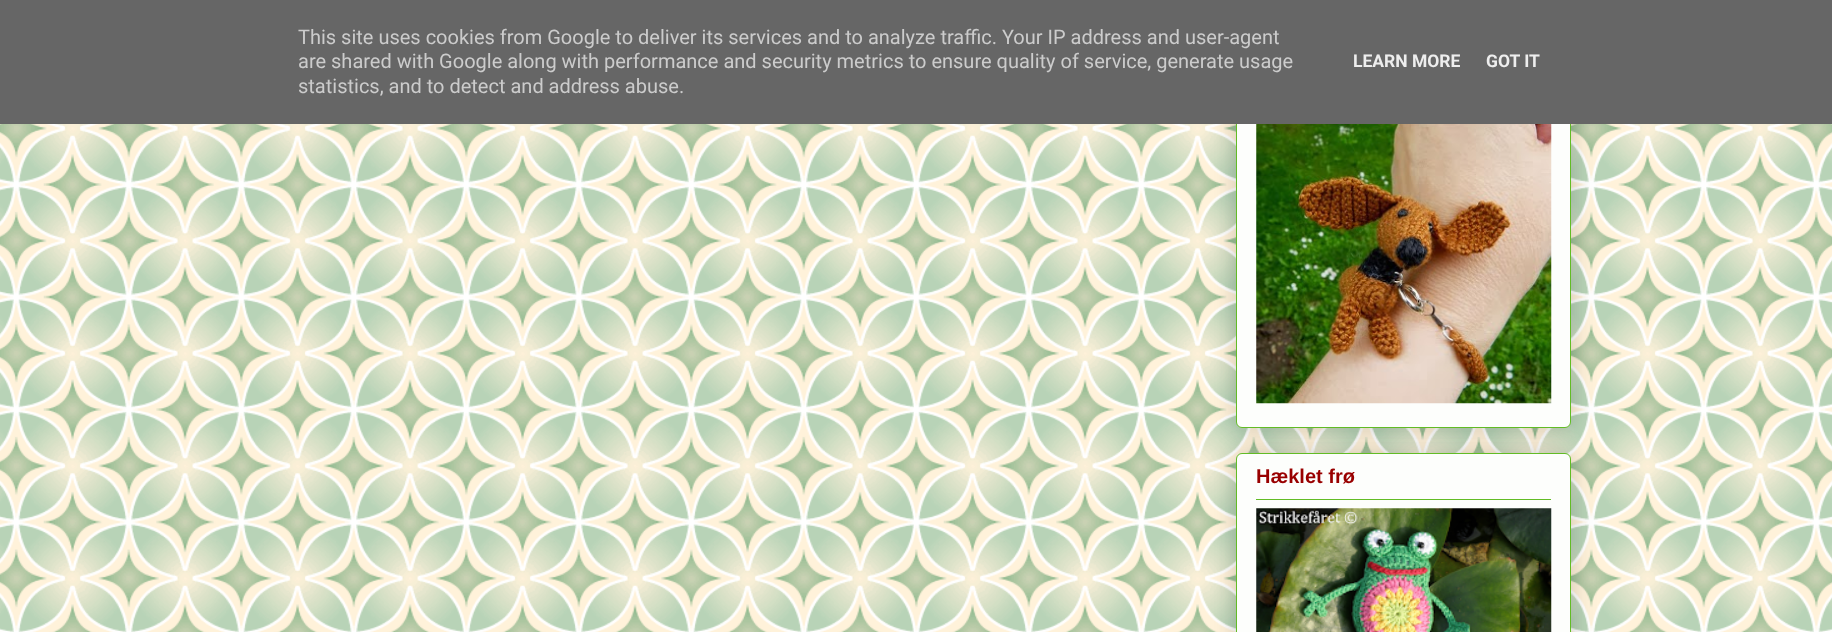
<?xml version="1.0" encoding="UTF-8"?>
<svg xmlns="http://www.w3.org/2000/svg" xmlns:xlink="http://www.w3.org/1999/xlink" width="1832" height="632">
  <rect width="100%" height="100%" fill="#ffffff" />
  <image x="0" y="124" width="1832" height="508" xlink:href="image1.png" />
  <rect x="1236" y="54" width="335" height="374" rx="6" fill="#000000" fill-opacity="0.2" filter="blur(12.5px)" />
  <rect x="1236.5" y="54.5" width="334" height="373" rx="5.5" fill="#fdfefc" stroke="#62bc25" />
  <rect width="1832" height="124" fill="#666666" />
  <image x="1256" y="124" width="296" height="280" xlink:href="image2.png" />
  <rect x="1236" y="453" width="335" height="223" rx="6" fill="#000000" fill-opacity="0.2" filter="blur(12.5px)" />
  <rect x="1236.5" y="453.5" width="334" height="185" rx="5.5" fill="#fdfefc" stroke="#62bc25" />
  <rect x="1256" y="499" width="295" height="1" fill="#62bc25" />
  <image x="1256" y="508" width="296" height="124" xlink:href="image3.png" />
  <text x="298" y="44" style="font-family: Roboto; font-size: 20px; fill: #cccccc">This site uses cookies from Google to deliver its services and to analyze traffic. Your IP address and user-agent</text>
  <text x="298" y="68" style="font-family: Roboto; font-size: 20px; fill: #cccccc">are shared with Google along with performance and security metrics to ensure quality of service, generate usage</text>
  <text x="298" y="93" style="font-family: Roboto; font-size: 20px; fill: #cccccc">statistics, and to detect and address abuse.</text>
  <text x="1353" y="67" style="font-family: Roboto; font-size: 17.5px; font-weight: bold; fill: #eeeeee">LEARN MORE</text>
  <text x="1486" y="67" style="font-family: Roboto; font-size: 17.5px; font-weight: bold; fill: #eeeeee">GOT IT</text>
  <text x="1256" y="483" style="font-family: Liberation Sans; font-size: 20px; font-weight: bold; fill: #990000">Hæklet frø</text>
</svg>
